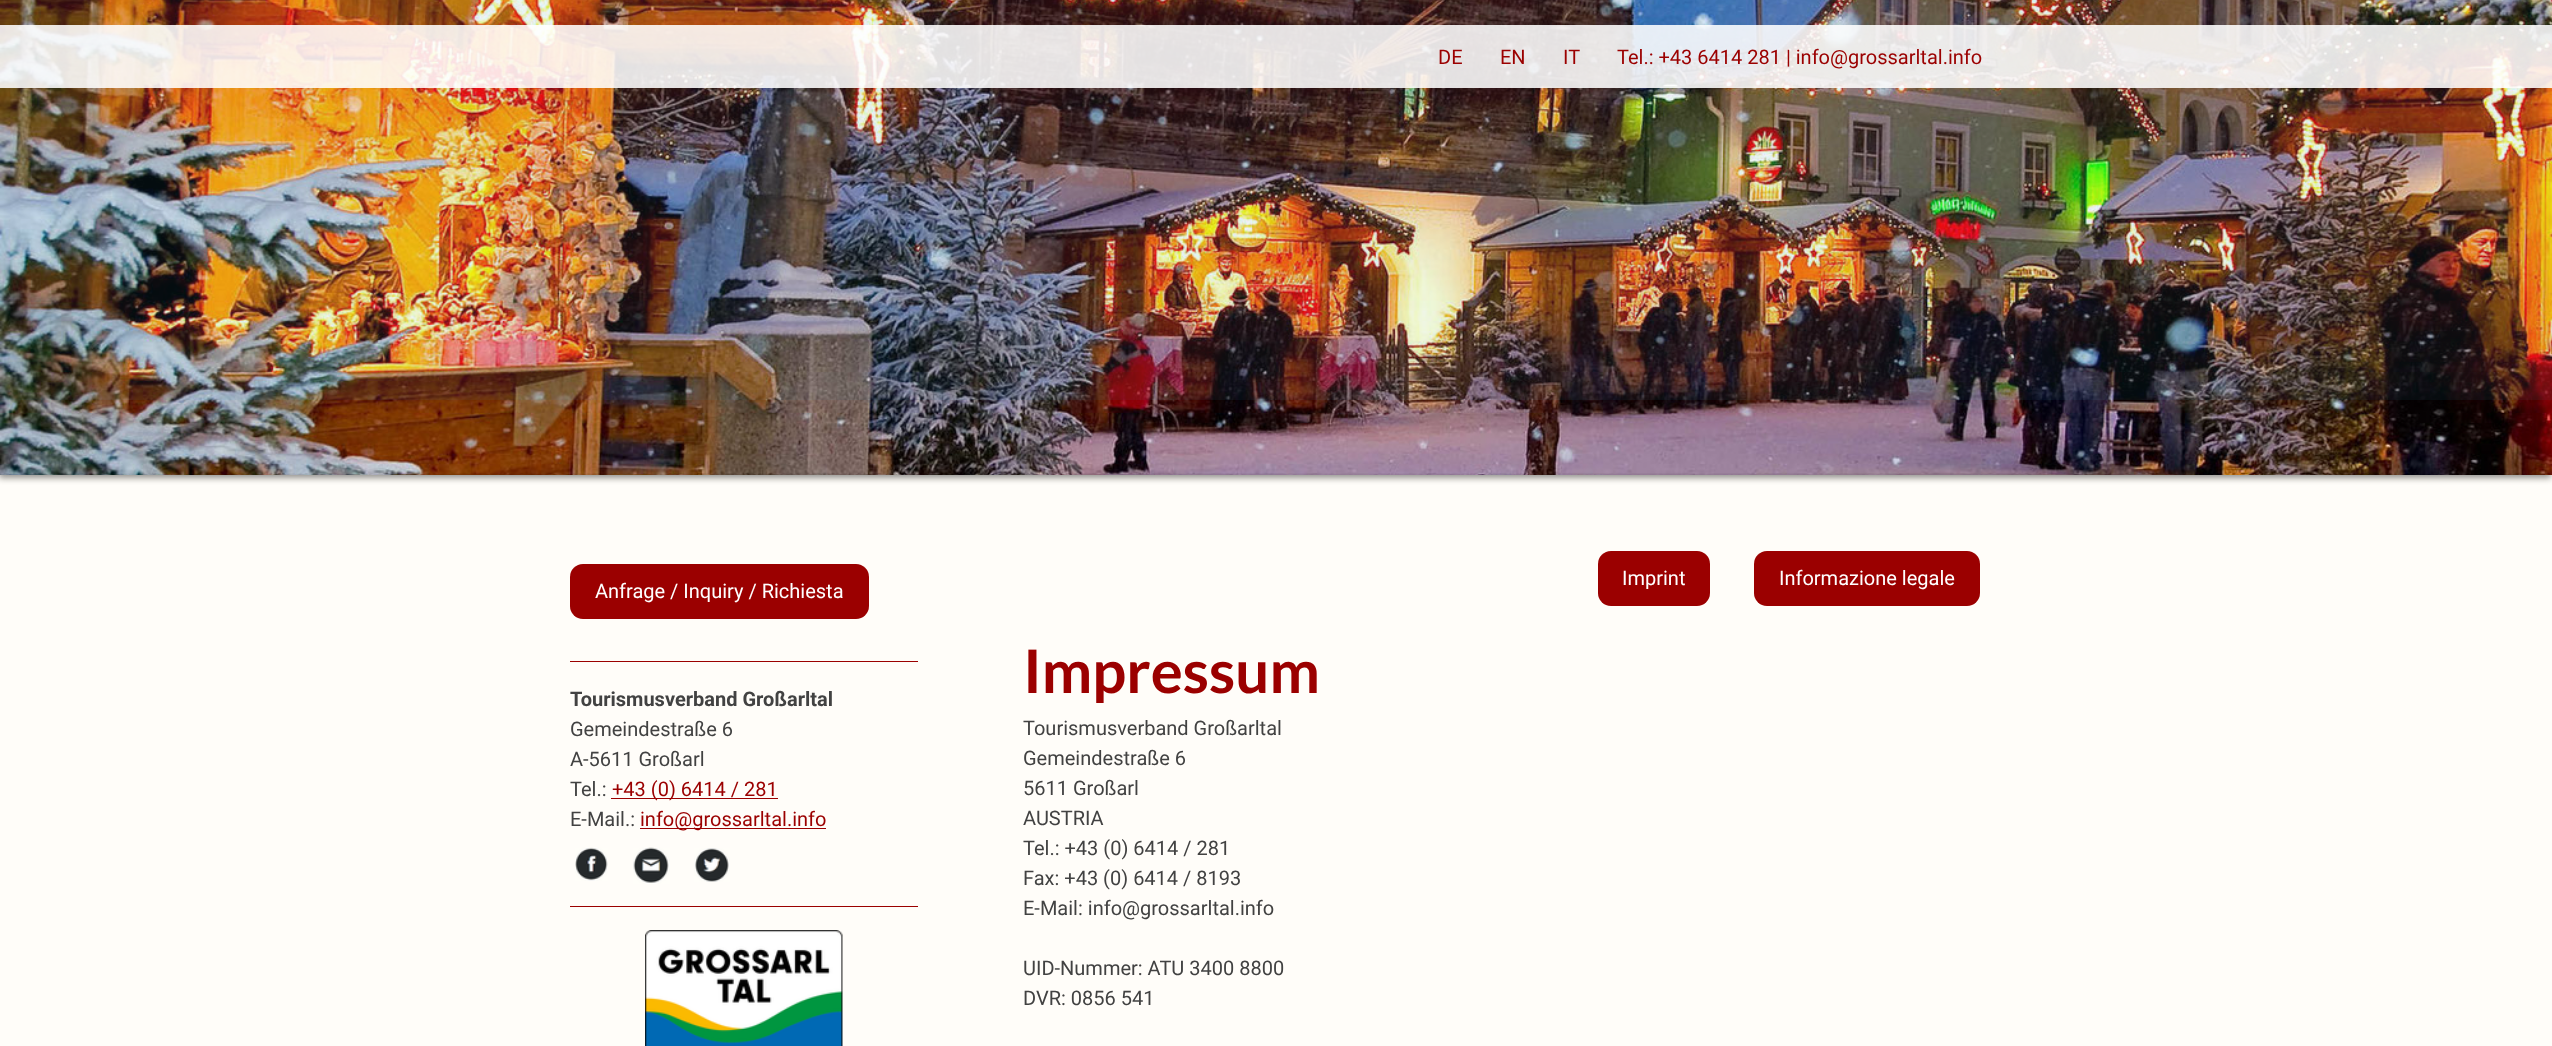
<?xml version="1.0" encoding="UTF-8"?>
<svg xmlns="http://www.w3.org/2000/svg" xmlns:xlink="http://www.w3.org/1999/xlink" width="2552" height="1046">
  <defs>
    <clipPath id="clip1"><rect x="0" y="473" width="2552" height="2" /></clipPath>
  </defs>
  <rect width="100%" height="100%" fill="#fffdf9" />
  <rect x="-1" y="3" width="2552" height="475" fill="#070602" fill-opacity="0.44" filter="blur(3px)" />
  <image x="0" y="0" width="2552" height="475" xlink:href="image1.png" />
  <rect width="2552" height="400" fill="#3299bb" fill-opacity="0.08" />
  <rect y="25" width="2552" height="63" fill="#ffffff" fill-opacity="0.88" />
  <g clip-path="url(#clip1)">
    <rect x="-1" y="478" width="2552" height="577" fill="#000000" fill-opacity="0.44" filter="blur(3px)" />
  </g>
  <rect x="570" y="564" width="299" height="55" rx="13" fill="#9b0000" />
  <rect x="570" y="661" width="348" height="1" fill="#9b0000" />
  <rect x="611" y="798" width="167" height="1" fill="#9b0000" />
  <rect x="640" y="828" width="186" height="1" fill="#9b0000" />
  <image x="575" y="847" width="33" height="34" xlink:href="image2.png" />
  <image x="633" y="847" width="37" height="37" xlink:href="image3.png" />
  <image x="694" y="848" width="36" height="34" xlink:href="image4.png" />
  <rect x="570" y="906" width="348" height="1" fill="#9b0000" />
  <image x="645" y="930" width="198" height="116" xlink:href="image5.png" />
  <rect x="1598" y="551" width="112" height="55" rx="13" fill="#9b0000" />
  <rect x="1754" y="551" width="226" height="55" rx="13" fill="#9b0000" />
  <text x="1438" y="64" style="font-family: Roboto; font-size: 20px; fill: #9b0000">DE</text>
  <text x="1500" y="64" style="font-family: Roboto; font-size: 20px; fill: #9b0000">EN</text>
  <text x="1563" y="64" style="font-family: Roboto; font-size: 20px; fill: #9b0000">IT</text>
  <text x="1617" y="64" style="font-family: Roboto; font-size: 20px; fill: #9b0000">Tel.: +43 6414 281 | info@grossarltal.info</text>
  <text x="595" y="598" style="font-family: Roboto; font-size: 20px; fill: #ffffff">Anfrage / Inquiry / Richiesta</text>
  <text x="570" y="706" style="font-family: Roboto; font-size: 20px; font-weight: bold; fill: #424242">Tourismusverband Großarltal</text>
  <text x="570" y="736" style="font-family: Roboto; font-size: 20px; fill: #424242">Gemeindestraße 6</text>
  <text x="570" y="766" style="font-family: Roboto; font-size: 20px; fill: #424242">A-5611 Großarl</text>
  <text x="570" y="796" style="font-family: Roboto; font-size: 20px; fill: #424242">Tel.:</text>
  <text x="612" y="796" style="font-family: Roboto; font-size: 20px; fill: #9b0000">+43 (0) 6414 / 281</text>
  <text x="570" y="826" style="font-family: Roboto; font-size: 20px; fill: #424242">E-Mail.:</text>
  <text x="640" y="826" style="font-family: Roboto; font-size: 20px; fill: #9b0000">info@grossarltal.info</text>
  <text x="1622" y="585" style="font-family: Roboto; font-size: 20px; fill: #ffffff">Imprint</text>
  <text x="1779" y="585" style="font-family: Roboto; font-size: 20px; fill: #ffffff">Informazione legale</text>
  <text x="1023" y="693" style="font-family: Lato; font-size: 60px; font-weight: bold; fill: #9b0000">Impressum</text>
  <text x="1023" y="735" style="font-family: Roboto; font-size: 20px; fill: #424242">Tourismusverband Großarltal</text>
  <text x="1023" y="765" style="font-family: Roboto; font-size: 20px; fill: #424242">Gemeindestraße 6</text>
  <text x="1023" y="795" style="font-family: Roboto; font-size: 20px; fill: #424242">5611 Großarl</text>
  <text x="1023" y="825" style="font-family: Roboto; font-size: 20px; fill: #424242">AUSTRIA</text>
  <text x="1023" y="855" style="font-family: Roboto; font-size: 20px; fill: #424242">Tel.: +43 (0) 6414 / 281</text>
  <text x="1023" y="885" style="font-family: Roboto; font-size: 20px; fill: #424242">Fax: +43 (0) 6414 / 8193</text>
  <text x="1023" y="915" style="font-family: Roboto; font-size: 20px; fill: #424242">E-Mail: info@grossarltal.info</text>
  <text x="1023" y="975" style="font-family: Roboto; font-size: 20px; fill: #424242">UID-Nummer: ATU 3400 8800</text>
  <text x="1023" y="1005" style="font-family: Roboto; font-size: 20px; fill: #424242">DVR: 0856 541</text>
</svg>
